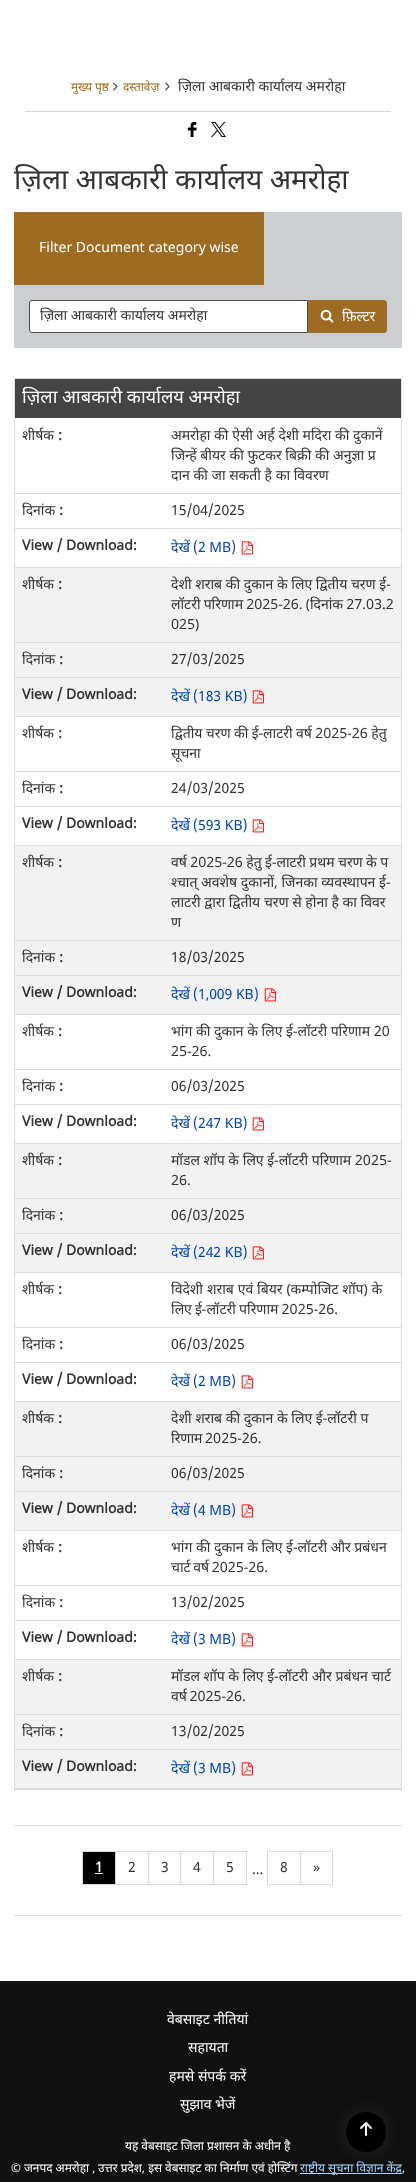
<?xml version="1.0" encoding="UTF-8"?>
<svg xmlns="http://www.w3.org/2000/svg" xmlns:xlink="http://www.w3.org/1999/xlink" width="416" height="2182">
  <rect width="100%" height="100%" fill="#ffffff" />
  <rect x="25" y="111" width="366" height="1" fill="#d8d8d8" />
  <image x="113" y="82" width="5" height="9" xlink:href="image1.png" />
  <image x="165" y="82" width="5" height="9" xlink:href="image1.png" />
  <image x="187" y="122" width="10" height="15" xlink:href="image2.png" />
  <image x="211" y="122" width="15" height="15" xlink:href="image3.png" />
  <rect x="14" y="212" width="388" height="136" fill="#cccfd1" />
  <rect x="14" y="212" width="250" height="73" fill="#9e6b22" />
  <path d="M 32 300.5 h 275.5 v 32 h -275.5 c -1.5 0 -2.5 -1 -2.5 -2.5 v -27 c 0 -1.5 1 -2.5 2.5 -2.5 z" fill="#ffffff" stroke="#504949" />
  <path d="M 308 300 h 76 c 1.5 0 3 1.5 3 3 v 27 c 0 1.5 -1.5 3 -3 3 h -76 z" fill="#9e6b22" />
  <image x="320" y="309" width="14" height="14" xlink:href="image4.png" />
  <rect x="14" y="378" width="388" height="1" fill="#dddddd" />
  <rect x="401" y="378" width="1" height="1412" fill="#dddddd" />
  <rect x="14" y="1789" width="388" height="1" fill="#dddddd" />
  <rect x="14" y="378" width="1" height="1412" fill="#dddddd" />
  <rect x="15" y="379" width="386" height="39" fill="#444444" />
  <rect x="15" y="493" width="386" height="1" fill="#dddddd" />
  <rect x="15" y="528" width="386" height="1" fill="#dddddd" />
  <rect x="15" y="567" width="386" height="1" fill="#dddddd" />
  <image x="241" y="541" width="12" height="14" xlink:href="image5.png" />
  <rect x="15" y="568" width="386" height="74" fill="#f2f2f2" />
  <rect x="15" y="642" width="386" height="1" fill="#dddddd" />
  <rect x="15" y="643" width="386" height="34" fill="#f2f2f2" />
  <rect x="15" y="677" width="386" height="1" fill="#dddddd" />
  <rect x="15" y="678" width="386" height="38" fill="#f2f2f2" />
  <rect x="15" y="716" width="386" height="1" fill="#dddddd" />
  <image x="252" y="690" width="12" height="14" xlink:href="image6.png" />
  <rect x="15" y="771" width="386" height="1" fill="#dddddd" />
  <rect x="15" y="806" width="386" height="1" fill="#dddddd" />
  <rect x="15" y="845" width="386" height="1" fill="#dddddd" />
  <image x="252" y="819" width="12" height="14" xlink:href="image5.png" />
  <rect x="15" y="846" width="386" height="94" fill="#f2f2f2" />
  <rect x="15" y="940" width="386" height="1" fill="#dddddd" />
  <rect x="15" y="941" width="386" height="34" fill="#f2f2f2" />
  <rect x="15" y="975" width="386" height="1" fill="#dddddd" />
  <rect x="15" y="976" width="386" height="38" fill="#f2f2f2" />
  <rect x="15" y="1014" width="386" height="1" fill="#dddddd" />
  <image x="264" y="988" width="12" height="14" xlink:href="image6.png" />
  <rect x="15" y="1069" width="386" height="1" fill="#dddddd" />
  <rect x="15" y="1104" width="386" height="1" fill="#dddddd" />
  <rect x="15" y="1143" width="386" height="1" fill="#dddddd" />
  <image x="252" y="1117" width="12" height="14" xlink:href="image5.png" />
  <rect x="15" y="1144" width="386" height="54" fill="#f2f2f2" />
  <rect x="15" y="1198" width="386" height="1" fill="#dddddd" />
  <rect x="15" y="1199" width="386" height="34" fill="#f2f2f2" />
  <rect x="15" y="1233" width="386" height="1" fill="#dddddd" />
  <rect x="15" y="1234" width="386" height="38" fill="#f2f2f2" />
  <rect x="15" y="1272" width="386" height="1" fill="#dddddd" />
  <image x="252" y="1246" width="12" height="14" xlink:href="image6.png" />
  <rect x="15" y="1327" width="386" height="1" fill="#dddddd" />
  <rect x="15" y="1362" width="386" height="1" fill="#dddddd" />
  <rect x="15" y="1401" width="386" height="1" fill="#dddddd" />
  <image x="241" y="1375" width="12" height="14" xlink:href="image5.png" />
  <rect x="15" y="1402" width="386" height="54" fill="#f2f2f2" />
  <rect x="15" y="1456" width="386" height="1" fill="#dddddd" />
  <rect x="15" y="1457" width="386" height="34" fill="#f2f2f2" />
  <rect x="15" y="1491" width="386" height="1" fill="#dddddd" />
  <rect x="15" y="1492" width="386" height="38" fill="#f2f2f2" />
  <rect x="15" y="1530" width="386" height="1" fill="#dddddd" />
  <image x="241" y="1504" width="12" height="14" xlink:href="image6.png" />
  <rect x="15" y="1585" width="386" height="1" fill="#dddddd" />
  <rect x="15" y="1620" width="386" height="1" fill="#dddddd" />
  <rect x="15" y="1659" width="386" height="1" fill="#dddddd" />
  <image x="241" y="1633" width="12" height="14" xlink:href="image5.png" />
  <rect x="15" y="1660" width="386" height="54" fill="#f2f2f2" />
  <rect x="15" y="1714" width="386" height="1" fill="#dddddd" />
  <rect x="15" y="1715" width="386" height="34" fill="#f2f2f2" />
  <rect x="15" y="1749" width="386" height="1" fill="#dddddd" />
  <rect x="15" y="1750" width="386" height="38" fill="#f2f2f2" />
  <rect x="15" y="1788" width="386" height="1" fill="#dddddd" />
  <image x="241" y="1762" width="12" height="14" xlink:href="image6.png" />
  <rect x="14" y="1825" width="388" height="1" fill="#d8d8d8" />
  <rect x="14" y="1915" width="388" height="1" fill="#d8d8d8" />
  <rect x="82.5" y="1851.5" width="33" height="33" fill="#000000" stroke="#d8d8d8" />
  <rect x="95" y="1873" width="8" height="1" fill="#ffffff" />
  <rect x="115.5" y="1851.5" width="33" height="33" fill="none" stroke="#d8d8d8" />
  <rect x="148.5" y="1851.5" width="32" height="33" fill="none" stroke="#d8d8d8" />
  <rect x="180.5" y="1851.5" width="33" height="33" fill="none" stroke="#d8d8d8" />
  <rect x="213.5" y="1851.5" width="33" height="33" fill="none" stroke="#d8d8d8" />
  <rect x="267.5" y="1851.5" width="33" height="33" fill="none" stroke="#d8d8d8" />
  <rect x="300.5" y="1851.5" width="32" height="33" fill="none" stroke="#d8d8d8" />
  <rect y="1981" width="416" height="201" fill="#111111" />
  <rect x="300" y="2173" width="102" height="1" fill="#a3d2f9" />
  <rect x="351" y="2117" width="30" height="30" rx="15" fill="#3c3c3c" filter="blur(9.5px)" />
  <circle cx="366" cy="2132" r="20" fill="#000000" />
  <image x="360" y="2122" width="12" height="14" xlink:href="image7.png" />
  <text x="71" y="91" style="font-family: Noto Sans; font-size: 11.9px; fill: #9e6b22">मुख्य पृष्ठ</text>
  <text x="123" y="91" style="font-family: Noto Sans; font-size: 11.9px; fill: #9e6b22">दस्तावेज़</text>
  <text x="178" y="91" style="font-family: Noto Sans; font-size: 14px; fill: #333333">ज़िला आबकारी कार्यालय अमरोहा</text>
  <text x="14" y="189" style="font-family: Noto Sans; font-size: 28px; fill: #333333">ज़िला आबकारी कार्यालय अमरोहा</text>
  <text x="39" y="252" style="font-family: 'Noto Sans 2'; font-size: 14px; fill: #ffffff">Filter Document category wise</text>
  <text x="40" y="320" style="font-family: Noto Sans; font-size: 14px; fill: #333333">ज़िला आबकारी कार्यालय अमरोहा</text>
  <text x="342" y="321" style="font-family: Noto Sans; font-size: 14px; fill: #ffffff">फ़िल्टर</text>
  <text x="22" y="403" style="font-family: Noto Sans; font-size: 18.25px; fill: #ffffff">ज़िला आबकारी कार्यालय अमरोहा</text>
  <text x="22" y="440" style="font-family: Noto Sans; font-size: 14px; fill: #333333">शीर्षक</text>
  <text x="58" y="440" style="font-family: Noto Sans; font-size: 14px; font-weight: bold; fill: #333333">:</text>
  <text x="171" y="440" style="font-family: Noto Sans; font-size: 14px; fill: #333333">अमरोहा की ऐसी अर्ह देशी मदिरा की दुकानें</text>
  <text x="171" y="460" style="font-family: Noto Sans; font-size: 14px; fill: #333333">जिन्हें बीयर की फुटकर बिक्री की अनुज्ञा प्र</text>
  <text x="171" y="480" style="font-family: Noto Sans; font-size: 14px; fill: #333333">दान की जा सकती है का विवरण</text>
  <text x="22" y="515" style="font-family: Noto Sans; font-size: 14px; fill: #333333">दिनांक</text>
  <text x="59" y="515" style="font-family: Noto Sans; font-size: 14px; font-weight: bold; fill: #333333">:</text>
  <text x="171" y="515" style="font-family: 'Noto Sans 2'; font-size: 14px; fill: #333333">15/04/2025</text>
  <text x="22" y="550" style="font-family: Noto Sans; font-size: 14px; font-weight: bold; fill: #333333">View / Download:</text>
  <text x="171" y="552" style="font-family: Noto Sans; font-size: 14px; fill: #0042bf">देखें</text>
  <text x="193" y="552" style="font-family: 'Noto Sans 2'; font-size: 14px; fill: #0042bf">(2 MB)</text>
  <text x="22" y="589" style="font-family: Noto Sans; font-size: 14px; fill: #333333">शीर्षक</text>
  <text x="58" y="589" style="font-family: Noto Sans; font-size: 14px; font-weight: bold; fill: #333333">:</text>
  <text x="171" y="589" style="font-family: Noto Sans; font-size: 14px; fill: #333333">देशी शराब की दुकान के लिए द्वितीय चरण ई-</text>
  <text x="171" y="609" word-spacing="-0.5" style="font-family: Noto Sans; font-size: 14px; fill: #333333">लॉटरी परिणाम 2025-26. (दिनांक 27.03.2</text>
  <text x="171" y="629" style="font-family: Noto Sans; font-size: 14px; fill: #333333">025)</text>
  <text x="22" y="664" style="font-family: Noto Sans; font-size: 14px; fill: #333333">दिनांक</text>
  <text x="59" y="664" style="font-family: Noto Sans; font-size: 14px; font-weight: bold; fill: #333333">:</text>
  <text x="171" y="664" style="font-family: 'Noto Sans 2'; font-size: 14px; fill: #333333">27/03/2025</text>
  <text x="22" y="699" style="font-family: Noto Sans; font-size: 14px; font-weight: bold; fill: #333333">View / Download:</text>
  <text x="171" y="701" style="font-family: Noto Sans; font-size: 14px; fill: #0042bf">देखें</text>
  <text x="193" y="701" style="font-family: 'Noto Sans 2'; font-size: 14px; fill: #0042bf">(183 KB)</text>
  <text x="22" y="738" style="font-family: Noto Sans; font-size: 14px; fill: #333333">शीर्षक</text>
  <text x="58" y="738" style="font-family: Noto Sans; font-size: 14px; font-weight: bold; fill: #333333">:</text>
  <text x="171" y="738" word-spacing="-0.25" style="font-family: Noto Sans; font-size: 14px; fill: #333333">द्वितीय चरण की ई-लाटरी वर्ष 2025-26 हेतु</text>
  <text x="171" y="758" style="font-family: Noto Sans; font-size: 14px; fill: #333333">सूचना</text>
  <text x="22" y="793" style="font-family: Noto Sans; font-size: 14px; fill: #333333">दिनांक</text>
  <text x="59" y="793" style="font-family: Noto Sans; font-size: 14px; font-weight: bold; fill: #333333">:</text>
  <text x="171" y="793" style="font-family: 'Noto Sans 2'; font-size: 14px; fill: #333333">24/03/2025</text>
  <text x="22" y="828" style="font-family: Noto Sans; font-size: 14px; font-weight: bold; fill: #333333">View / Download:</text>
  <text x="171" y="830" style="font-family: Noto Sans; font-size: 14px; fill: #0042bf">देखें</text>
  <text x="193" y="830" style="font-family: 'Noto Sans 2'; font-size: 14px; fill: #0042bf">(593 KB)</text>
  <text x="22" y="867" style="font-family: Noto Sans; font-size: 14px; fill: #333333">शीर्षक</text>
  <text x="58" y="867" style="font-family: Noto Sans; font-size: 14px; font-weight: bold; fill: #333333">:</text>
  <text x="171" y="867" word-spacing="-0.25" style="font-family: Noto Sans; font-size: 14px; fill: #333333">वर्ष 2025-26 हेतु ई-लाटरी प्रथम चरण के प</text>
  <text x="171" y="887" style="font-family: Noto Sans; font-size: 14px; fill: #333333">श्चात् अवशेष दुकानों, जिनका व्यवस्थापन ई-</text>
  <text x="171" y="907" style="font-family: Noto Sans; font-size: 14px; fill: #333333">लाटरी द्वारा द्वितीय चरण से होना है का विवर</text>
  <text x="171" y="927" style="font-family: Noto Sans; font-size: 14px; fill: #333333">ण</text>
  <text x="22" y="962" style="font-family: Noto Sans; font-size: 14px; fill: #333333">दिनांक</text>
  <text x="59" y="962" style="font-family: Noto Sans; font-size: 14px; font-weight: bold; fill: #333333">:</text>
  <text x="171" y="962" style="font-family: 'Noto Sans 2'; font-size: 14px; fill: #333333">18/03/2025</text>
  <text x="22" y="997" style="font-family: Noto Sans; font-size: 14px; font-weight: bold; fill: #333333">View / Download:</text>
  <text x="171" y="999" style="font-family: Noto Sans; font-size: 14px; fill: #0042bf">देखें</text>
  <text x="193" y="999" style="font-family: 'Noto Sans 2'; font-size: 14px; fill: #0042bf">(1,009 KB)</text>
  <text x="22" y="1036" style="font-family: Noto Sans; font-size: 14px; fill: #333333">शीर्षक</text>
  <text x="58" y="1036" style="font-family: Noto Sans; font-size: 14px; font-weight: bold; fill: #333333">:</text>
  <text x="171" y="1036" style="font-family: Noto Sans; font-size: 14px; fill: #333333">भांग की दुकान के लिए ई-लॉटरी परिणाम 20</text>
  <text x="171" y="1056" style="font-family: Noto Sans; font-size: 14px; fill: #333333">25-26.</text>
  <text x="22" y="1091" style="font-family: Noto Sans; font-size: 14px; fill: #333333">दिनांक</text>
  <text x="59" y="1091" style="font-family: Noto Sans; font-size: 14px; font-weight: bold; fill: #333333">:</text>
  <text x="171" y="1091" style="font-family: 'Noto Sans 2'; font-size: 14px; fill: #333333">06/03/2025</text>
  <text x="22" y="1126" style="font-family: Noto Sans; font-size: 14px; font-weight: bold; fill: #333333">View / Download:</text>
  <text x="171" y="1128" style="font-family: Noto Sans; font-size: 14px; fill: #0042bf">देखें</text>
  <text x="193" y="1128" style="font-family: 'Noto Sans 2'; font-size: 14px; fill: #0042bf">(247 KB)</text>
  <text x="22" y="1165" style="font-family: Noto Sans; font-size: 14px; fill: #333333">शीर्षक</text>
  <text x="58" y="1165" style="font-family: Noto Sans; font-size: 14px; font-weight: bold; fill: #333333">:</text>
  <text x="171" y="1165" style="font-family: Noto Sans; font-size: 14px; fill: #333333">मॉडल शॉप के लिए ई-लॉटरी परिणाम 2025-</text>
  <text x="171" y="1185" style="font-family: Noto Sans; font-size: 14px; fill: #333333">26.</text>
  <text x="22" y="1220" style="font-family: Noto Sans; font-size: 14px; fill: #333333">दिनांक</text>
  <text x="59" y="1220" style="font-family: Noto Sans; font-size: 14px; font-weight: bold; fill: #333333">:</text>
  <text x="171" y="1220" style="font-family: 'Noto Sans 2'; font-size: 14px; fill: #333333">06/03/2025</text>
  <text x="22" y="1255" style="font-family: Noto Sans; font-size: 14px; font-weight: bold; fill: #333333">View / Download:</text>
  <text x="171" y="1257" style="font-family: Noto Sans; font-size: 14px; fill: #0042bf">देखें</text>
  <text x="193" y="1257" style="font-family: 'Noto Sans 2'; font-size: 14px; fill: #0042bf">(242 KB)</text>
  <text x="22" y="1294" style="font-family: Noto Sans; font-size: 14px; fill: #333333">शीर्षक</text>
  <text x="58" y="1294" style="font-family: Noto Sans; font-size: 14px; font-weight: bold; fill: #333333">:</text>
  <text x="171" y="1294" word-spacing="0.25" style="font-family: Noto Sans; font-size: 14px; fill: #333333">विदेशी शराब एवं बियर (कम्पोजिट शॉप) के</text>
  <text x="171" y="1314" word-spacing="-0.5" style="font-family: Noto Sans; font-size: 14px; fill: #333333">लिए ई-लॉटरी परिणाम 2025-26.</text>
  <text x="22" y="1349" style="font-family: Noto Sans; font-size: 14px; fill: #333333">दिनांक</text>
  <text x="59" y="1349" style="font-family: Noto Sans; font-size: 14px; font-weight: bold; fill: #333333">:</text>
  <text x="171" y="1349" style="font-family: 'Noto Sans 2'; font-size: 14px; fill: #333333">06/03/2025</text>
  <text x="22" y="1384" style="font-family: Noto Sans; font-size: 14px; font-weight: bold; fill: #333333">View / Download:</text>
  <text x="171" y="1386" style="font-family: Noto Sans; font-size: 14px; fill: #0042bf">देखें</text>
  <text x="193" y="1386" style="font-family: 'Noto Sans 2'; font-size: 14px; fill: #0042bf">(2 MB)</text>
  <text x="22" y="1423" style="font-family: Noto Sans; font-size: 14px; fill: #333333">शीर्षक</text>
  <text x="58" y="1423" style="font-family: Noto Sans; font-size: 14px; font-weight: bold; fill: #333333">:</text>
  <text x="171" y="1423" style="font-family: Noto Sans; font-size: 14px; fill: #333333">देशी शराब की दुकान के लिए ई-लॉटरी प</text>
  <text x="171" y="1443" word-spacing="-1" style="font-family: Noto Sans; font-size: 14px; fill: #333333">रिणाम 2025-26.</text>
  <text x="22" y="1478" style="font-family: Noto Sans; font-size: 14px; fill: #333333">दिनांक</text>
  <text x="59" y="1478" style="font-family: Noto Sans; font-size: 14px; font-weight: bold; fill: #333333">:</text>
  <text x="171" y="1478" style="font-family: 'Noto Sans 2'; font-size: 14px; fill: #333333">06/03/2025</text>
  <text x="22" y="1513" style="font-family: Noto Sans; font-size: 14px; font-weight: bold; fill: #333333">View / Download:</text>
  <text x="171" y="1515" style="font-family: Noto Sans; font-size: 14px; fill: #0042bf">देखें</text>
  <text x="193" y="1515" style="font-family: 'Noto Sans 2'; font-size: 14px; fill: #0042bf">(4 MB)</text>
  <text x="22" y="1552" style="font-family: Noto Sans; font-size: 14px; fill: #333333">शीर्षक</text>
  <text x="58" y="1552" style="font-family: Noto Sans; font-size: 14px; font-weight: bold; fill: #333333">:</text>
  <text x="171" y="1552" style="font-family: Noto Sans; font-size: 14px; fill: #333333">भांग की दुकान के लिए ई-लॉटरी और प्रबंधन</text>
  <text x="171" y="1572" word-spacing="-1" style="font-family: Noto Sans; font-size: 14px; fill: #333333">चार्ट वर्ष 2025-26.</text>
  <text x="22" y="1607" style="font-family: Noto Sans; font-size: 14px; fill: #333333">दिनांक</text>
  <text x="59" y="1607" style="font-family: Noto Sans; font-size: 14px; font-weight: bold; fill: #333333">:</text>
  <text x="171" y="1607" style="font-family: 'Noto Sans 2'; font-size: 14px; fill: #333333">13/02/2025</text>
  <text x="22" y="1642" style="font-family: Noto Sans; font-size: 14px; font-weight: bold; fill: #333333">View / Download:</text>
  <text x="171" y="1644" style="font-family: Noto Sans; font-size: 14px; fill: #0042bf">देखें</text>
  <text x="193" y="1644" style="font-family: 'Noto Sans 2'; font-size: 14px; fill: #0042bf">(3 MB)</text>
  <text x="22" y="1681" style="font-family: Noto Sans; font-size: 14px; fill: #333333">शीर्षक</text>
  <text x="58" y="1681" style="font-family: Noto Sans; font-size: 14px; font-weight: bold; fill: #333333">:</text>
  <text x="171" y="1681" style="font-family: Noto Sans; font-size: 14px; fill: #333333">मॉडल शॉप के लिए ई-लॉटरी और प्रबंधन चार्ट</text>
  <text x="171" y="1701" word-spacing="-1" style="font-family: Noto Sans; font-size: 14px; fill: #333333">वर्ष 2025-26.</text>
  <text x="22" y="1736" style="font-family: Noto Sans; font-size: 14px; fill: #333333">दिनांक</text>
  <text x="59" y="1736" style="font-family: Noto Sans; font-size: 14px; font-weight: bold; fill: #333333">:</text>
  <text x="171" y="1736" style="font-family: 'Noto Sans 2'; font-size: 14px; fill: #333333">13/02/2025</text>
  <text x="22" y="1771" style="font-family: Noto Sans; font-size: 14px; font-weight: bold; fill: #333333">View / Download:</text>
  <text x="171" y="1773" style="font-family: Noto Sans; font-size: 14px; fill: #0042bf">देखें</text>
  <text x="193" y="1773" style="font-family: 'Noto Sans 2'; font-size: 14px; fill: #0042bf">(3 MB)</text>
  <text x="95" y="1872" style="font-family: Noto Sans; font-size: 14px; font-weight: bold; fill: #ffffff">1</text>
  <text x="128" y="1872" style="font-family: 'Noto Sans 2'; font-size: 14px; fill: #333333">2</text>
  <text x="161" y="1872" style="font-family: 'Noto Sans 2'; font-size: 14px; fill: #333333">3</text>
  <text x="193" y="1872" style="font-family: 'Noto Sans 2'; font-size: 14px; fill: #333333">4</text>
  <text x="226" y="1872" style="font-family: 'Noto Sans 2'; font-size: 14px; fill: #333333">5</text>
  <text x="280" y="1872" style="font-family: 'Noto Sans 2'; font-size: 14px; fill: #333333">8</text>
  <text x="313" y="1872" style="font-family: 'Noto Sans 2'; font-size: 14px; fill: #333333">»</text>
  <text x="252" y="1874" style="font-family: 'Noto Sans 2'; font-size: 14px; fill: #333333">...</text>
  <text x="167" y="2024" style="font-family: Noto Sans; font-size: 14px; fill: #ffffff">वेबसाइट नीतियां</text>
  <text x="188" y="2052" style="font-family: Noto Sans; font-size: 14px; fill: #ffffff">सहायता</text>
  <text x="169" y="2081" style="font-family: Noto Sans; font-size: 14px; fill: #ffffff">हमसे संपर्क करें</text>
  <text x="180" y="2109" style="font-family: Noto Sans; font-size: 14px; fill: #ffffff">सुझाव भेजें</text>
  <text x="125" y="2150" style="font-family: Noto Sans; font-size: 11.9px; fill: #ffffff">यह वेबसाइट जिला प्रशासन के अधीन है</text>
  <text x="11" y="2172" style="font-family: Noto Sans; font-size: 11.9px; fill: #ffffff">© जनपद अमरोहा ,</text>
  <text x="98" y="2172" style="font-family: Noto Sans; font-size: 11.9px; fill: #ffffff">उत्तर प्रदेश, इस वेबसाइट का निर्माण एवं होस्टिंग</text>
  <text x="300" y="2172" style="font-family: Noto Sans; font-size: 11.9px; fill: #a3d2f9">राष्ट्रीय सूचना विज्ञान केंद्र</text>
  <text x="402" y="2172" style="font-family: 'Noto Sans 2'; font-size: 11.9px; fill: #ffffff">,</text>
</svg>
